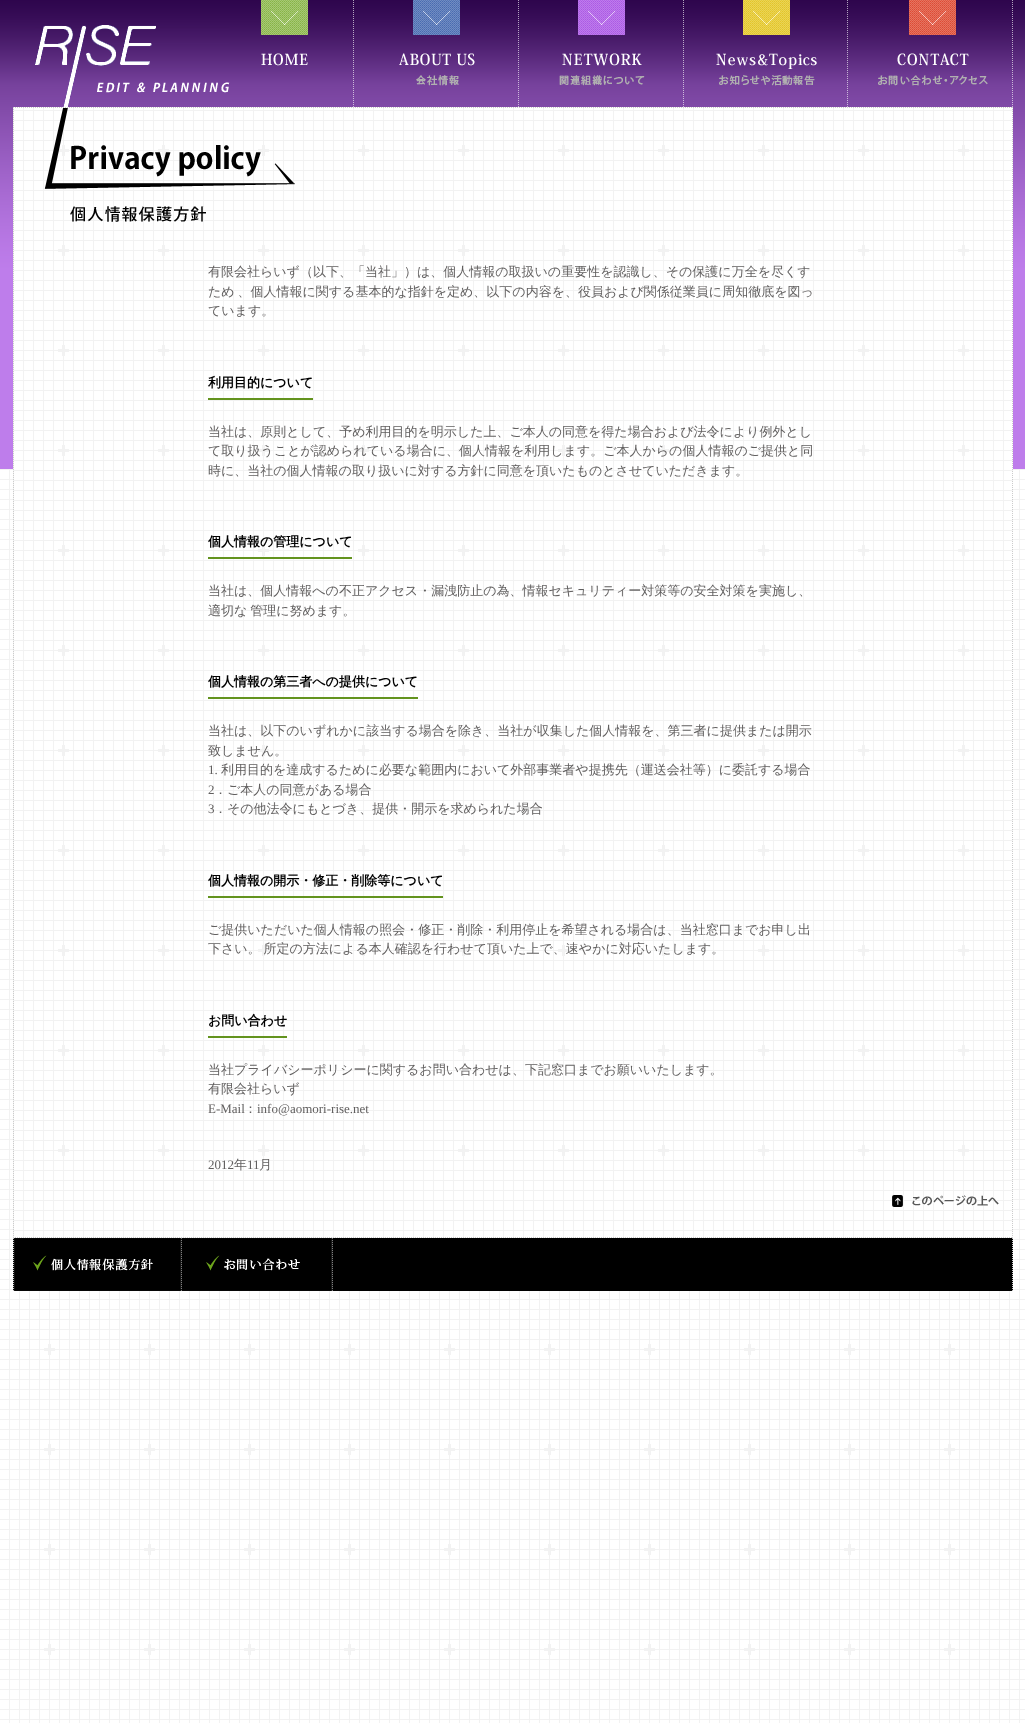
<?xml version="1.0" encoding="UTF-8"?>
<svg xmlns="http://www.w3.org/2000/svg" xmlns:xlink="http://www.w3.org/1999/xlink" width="1025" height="1723">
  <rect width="100%" height="100%" fill="#ffffff" />
  <image x="0" y="469" width="1025" height="1254" xlink:href="image1.png" />
  <image x="0" y="0" width="1025" height="469" xlink:href="image2.png" />
  <image x="35" y="25" width="194" height="82" xlink:href="image3.png" />
  <image x="229" y="0" width="125" height="107" xlink:href="image4.png" />
  <image x="399" y="0" width="120" height="107" xlink:href="image5.png" />
  <image x="559" y="0" width="125" height="107" xlink:href="image6.png" />
  <image x="716" y="0" width="132" height="107" xlink:href="image7.png" />
  <image x="878" y="0" width="135" height="107" xlink:href="image8.png" />
  <image x="13" y="107" width="1000" height="1131" xlink:href="image9.png" />
  <path d="M 13 107.5 h 1000" fill="none" stroke="#cccccc" stroke-dasharray="1 1" />
  <path d="M 1012.5 107 v 1131" fill="none" stroke="#cccccc" stroke-dasharray="1 1" />
  <path d="M 13 1237.5 h 1000" fill="none" stroke="#cccccc" stroke-dasharray="1 1" />
  <path d="M 13.5 107 v 1131" fill="none" stroke="#cccccc" stroke-dasharray="1 1" />
  <image x="44" y="108" width="251" height="114" xlink:href="image10.png" />
  <rect x="208" y="398" width="105" height="2" fill="#63931e" />
  <rect x="208" y="557" width="144" height="2" fill="#63931e" />
  <rect x="208" y="697" width="210" height="2" fill="#63931e" />
  <rect x="208" y="896" width="235" height="2" fill="#63931e" />
  <rect x="208" y="1036" width="79" height="2" fill="#63931e" />
  <image x="892" y="1195" width="107" height="12" xlink:href="image11.png" />
  <rect x="13" y="1238" width="1000" height="53" fill="#000000" />
  <path d="M 1012.5 1238 v 53" fill="none" stroke="#cccccc" stroke-dasharray="1 1" />
  <path d="M 13.5 1238 v 53" fill="none" stroke="#cccccc" stroke-dasharray="1 1" />
  <image x="14" y="1238" width="168" height="53" xlink:href="image12.png" />
  <image x="182" y="1238" width="151" height="53" xlink:href="image13.png" />
  <text x="208" y="276" style="font-family: WenQuanYi Zen Hei; font-size: 13px; font-weight: 500; fill: #615f5f">有限会社らいず（以下、「当社」）は、個人情報の取扱いの重要性を認識し、その保護に万全を尽くす</text>
  <text x="208" y="296" word-spacing="-1" style="font-family: WenQuanYi Zen Hei; font-size: 13px; font-weight: 500; fill: #615f5f">ため 、個人情報に関する基本的な指針を定め、以下の内容を、役員および関係従業員に周知徹底を図っ</text>
  <text x="208" y="315" style="font-family: WenQuanYi Zen Hei; font-size: 13px; font-weight: 500; fill: #615f5f">ています。</text>
  <text x="208" y="387" style="font-family: WenQuanYi Zen Hei; font-size: 13px; font-weight: bold; fill: #000000">利用目的について</text>
  <text x="208" y="436" style="font-family: WenQuanYi Zen Hei; font-size: 13px; font-weight: 500; fill: #615f5f">当社は、原則として、予め利用目的を明示した上、ご本人の同意を得た場合および法令により例外とし</text>
  <text x="208" y="455" style="font-family: WenQuanYi Zen Hei; font-size: 13px; font-weight: 500; fill: #615f5f">て取り扱うことが認められている場合に、個人情報を利用します。ご本人からの個人情報のご提供と同</text>
  <text x="208" y="475" style="font-family: WenQuanYi Zen Hei; font-size: 13px; font-weight: 500; fill: #615f5f">時に、当社の個人情報の取り扱いに対する方針に同意を頂いたものとさせていただきます。</text>
  <text x="208" y="546" style="font-family: WenQuanYi Zen Hei; font-size: 13px; font-weight: bold; fill: #000000">個人情報の管理について</text>
  <text x="208" y="595" style="font-family: WenQuanYi Zen Hei; font-size: 13px; font-weight: 500; fill: #615f5f">当社は、個人情報への不正アクセス・漏洩防止の為、情報セキュリティー対策等の安全対策を実施し、</text>
  <text x="208" y="615" word-spacing="-1" style="font-family: WenQuanYi Zen Hei; font-size: 13px; font-weight: 500; fill: #615f5f">適切な 管理に努めます。</text>
  <text x="208" y="686" style="font-family: WenQuanYi Zen Hei; font-size: 13px; font-weight: bold; fill: #000000">個人情報の第三者への提供について</text>
  <text x="208" y="735" style="font-family: WenQuanYi Zen Hei; font-size: 13px; font-weight: 500; fill: #615f5f">当社は、以下のいずれかに該当する場合を除き、当社が収集した個人情報を、第三者に提供または開示</text>
  <text x="208" y="755" style="font-family: WenQuanYi Zen Hei; font-size: 13px; font-weight: 500; fill: #615f5f">致しません。</text>
  <text x="208" y="774" style="font-family: Liberation Serif; font-size: 13px; fill: #615f5f">1.</text>
  <text x="221" y="774" style="font-family: WenQuanYi Zen Hei; font-size: 13px; font-weight: 500; fill: #615f5f">利用目的を達成するために必要な範囲内において外部事業者や提携先（運送会社等）に委託する場合</text>
  <text x="208" y="794" style="font-family: Liberation Serif; font-size: 13px; fill: #615f5f">2</text>
  <text x="214" y="794" style="font-family: WenQuanYi Zen Hei; font-size: 13px; font-weight: 500; fill: #615f5f">．ご本人の同意がある場合</text>
  <text x="208" y="813" style="font-family: Liberation Serif; font-size: 13px; fill: #615f5f">3</text>
  <text x="214" y="813" style="font-family: WenQuanYi Zen Hei; font-size: 13px; font-weight: 500; fill: #615f5f">．その他法令にもとづき、提供・開示を求められた場合</text>
  <text x="208" y="885" style="font-family: WenQuanYi Zen Hei; font-size: 13px; font-weight: bold; fill: #000000">個人情報の開示・修正・削除等について</text>
  <text x="208" y="934" style="font-family: WenQuanYi Zen Hei; font-size: 13px; font-weight: 500; fill: #615f5f">ご提供いただいた個人情報の照会・修正・削除・利用停止を希望される場合は、当社窓口までお申し出</text>
  <text x="208" y="953" word-spacing="-1" style="font-family: WenQuanYi Zen Hei; font-size: 13px; font-weight: 500; fill: #615f5f">下さい。 所定の方法による本人確認を行わせて頂いた上で、速やかに対応いたします。</text>
  <text x="208" y="1025" style="font-family: WenQuanYi Zen Hei; font-size: 13px; font-weight: bold; fill: #000000">お問い合わせ</text>
  <text x="208" y="1074" style="font-family: WenQuanYi Zen Hei; font-size: 13px; font-weight: 500; fill: #615f5f">当社プライバシーポリシーに関するお問い合わせは、下記窓口までお願いいたします。</text>
  <text x="208" y="1093" style="font-family: WenQuanYi Zen Hei; font-size: 13px; font-weight: 500; fill: #615f5f">有限会社らいず</text>
  <text x="208" y="1113" style="font-family: Liberation Serif; font-size: 13px; fill: #615f5f">E-Mail</text>
  <text x="244" y="1113" style="font-family: WenQuanYi Zen Hei; font-size: 13px; font-weight: 500; fill: #615f5f">：</text>
  <text x="257" y="1113" style="font-family: Liberation Serif; font-size: 13px; fill: #615f5f">info@aomori-rise.net</text>
  <text x="208" y="1169" style="font-family: Liberation Serif; font-size: 13px; fill: #615f5f">2012</text>
  <text x="234" y="1169" style="font-family: WenQuanYi Zen Hei; font-size: 13px; font-weight: 500; fill: #615f5f">年</text>
  <text x="247" y="1169" style="font-family: Liberation Serif; font-size: 13px; fill: #615f5f">11</text>
  <text x="259" y="1169" style="font-family: WenQuanYi Zen Hei; font-size: 13px; font-weight: 500; fill: #615f5f">月</text>
</svg>
